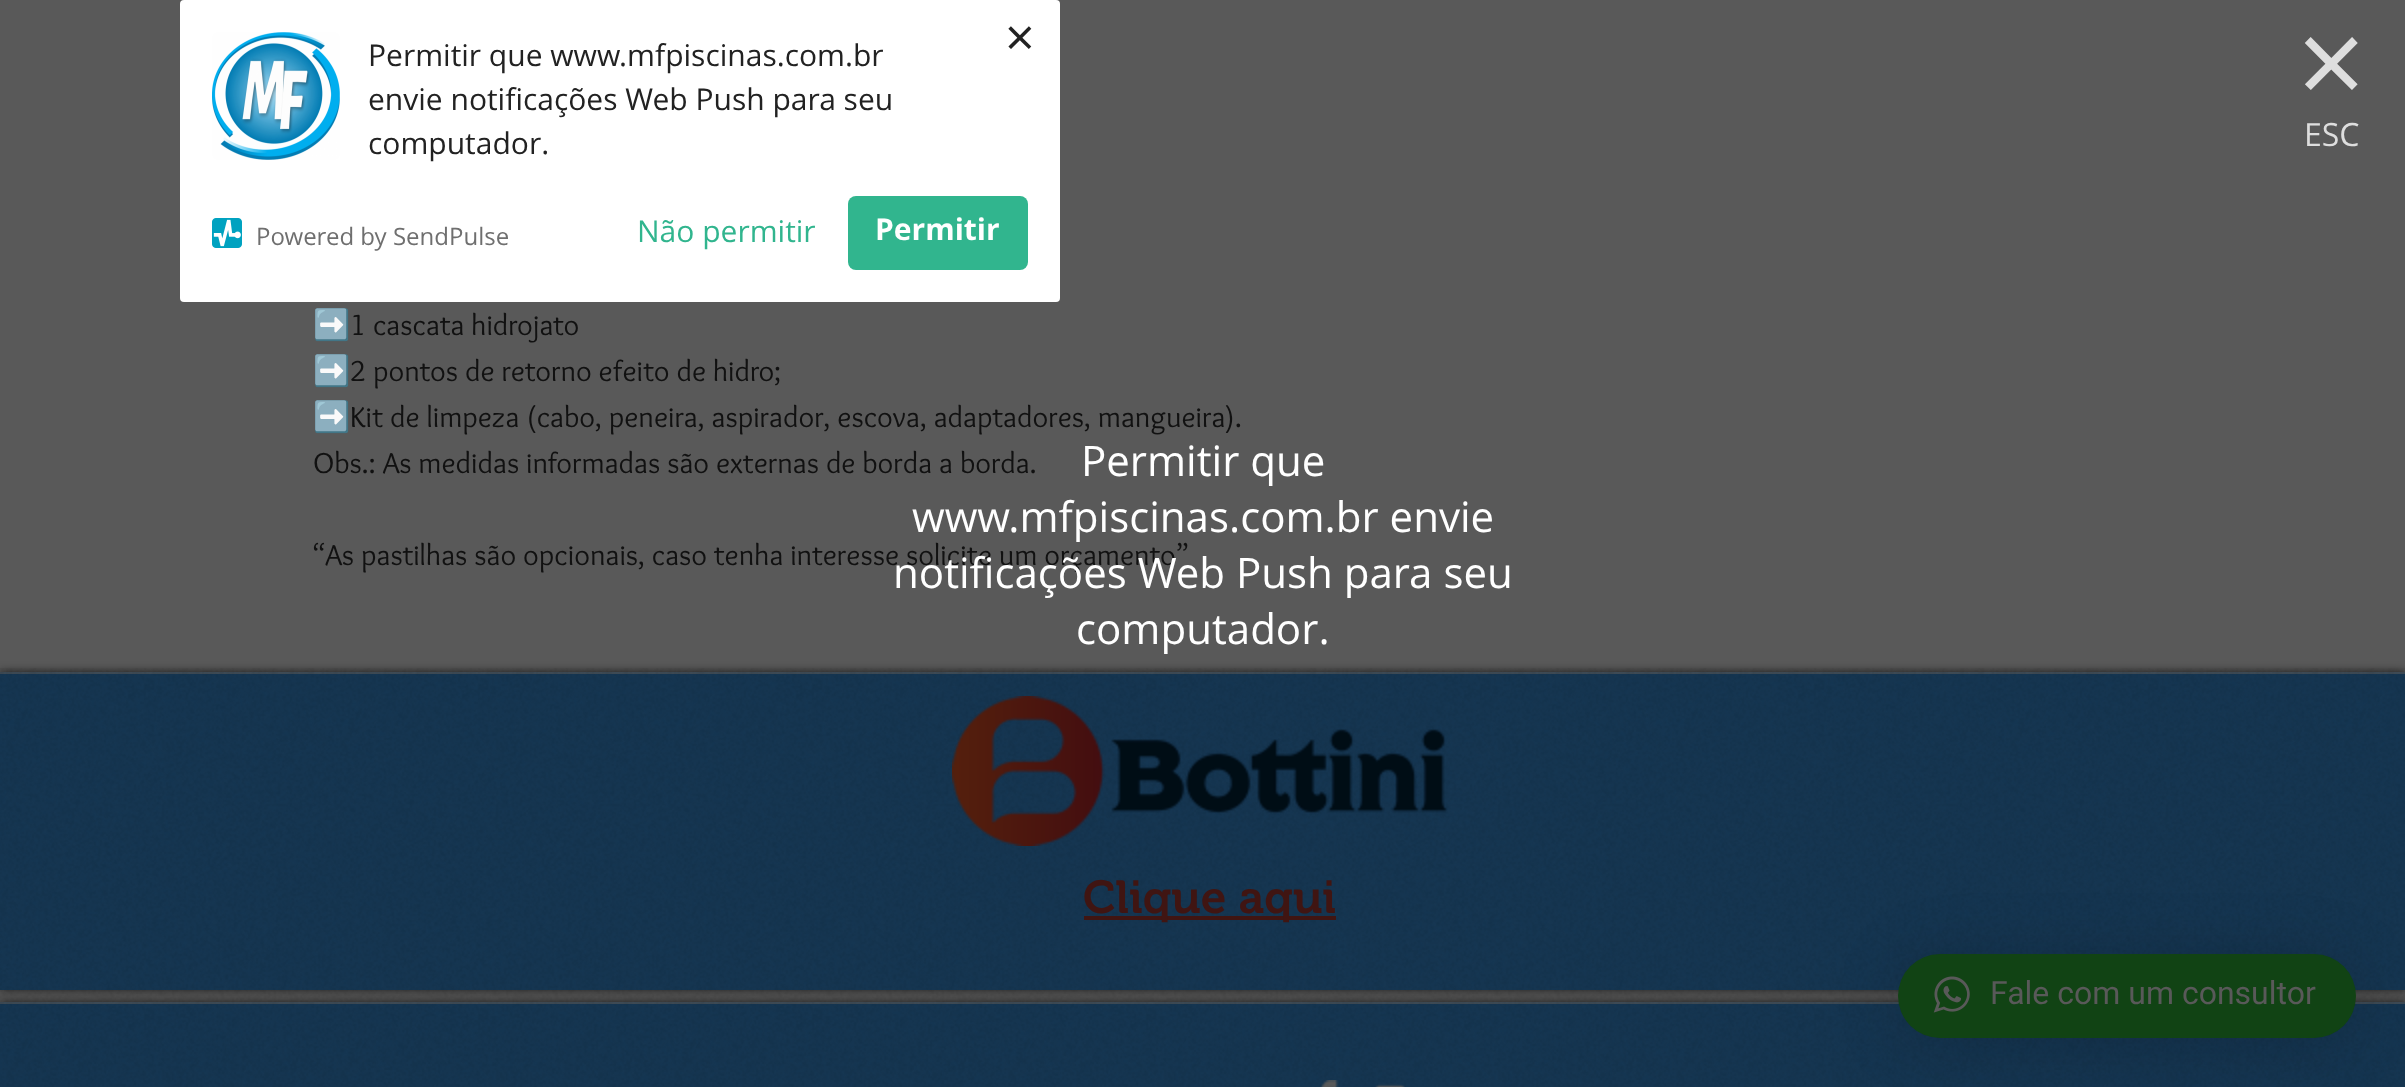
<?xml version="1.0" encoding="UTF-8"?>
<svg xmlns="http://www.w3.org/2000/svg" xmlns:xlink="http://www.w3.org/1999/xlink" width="2405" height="1087">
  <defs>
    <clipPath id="clip1"><path d="M 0 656 h 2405 v 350 h -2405 z m 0 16 h 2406 v 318 h -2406 z" clip-rule="evenodd" /></clipPath>
    <clipPath id="clip2"><rect x="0" y="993" width="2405" height="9" /></clipPath>
    <clipPath id="clip3"><rect x="314" width="1000" height="578" /></clipPath>
  </defs>
  <rect width="100%" height="100%" fill="#595959" />
  <rect x="180" width="880" height="302" rx="4" fill="#ffffff" />
  <image x="212" y="32" width="128" height="128" xlink:href="image1.png" />
  <image x="212" y="218" width="30" height="30" xlink:href="image2.png" />
  <rect x="848" y="196" width="180" height="74" rx="8" fill="#31b58e" />
  <image x="0" y="668" width="2405" height="334" xlink:href="image3.png" />
  <rect y="674" width="2405" height="316" fill="#153652" />
  <rect y="672" width="2405" height="2" fill="#3e4b56" />
  <g clip-path="url(#clip1)">
    <rect y="672" width="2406" height="318" fill="#000000" fill-opacity="0.7" filter="blur(5px)" />
  </g>
  <image x="0" y="672" width="2405" height="318" xlink:href="image4.png" />
  <image x="952" y="696" width="496" height="150" xlink:href="image5.png" />
  <rect x="1084" y="916" width="252" height="4" fill="#401512" />
  <rect y="1004" width="2405" height="83" fill="#153652" />
  <rect y="1002" width="2405" height="2" fill="#3e4b56" />
  <g clip-path="url(#clip2)">
    <rect y="1002" width="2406" height="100" fill="#000000" fill-opacity="0.7" filter="blur(5px)" />
  </g>
  <image x="0" y="1002" width="2405" height="85" xlink:href="image6.png" />
  <image x="1320" y="1080" width="19" height="7" xlink:href="image7.png" />
  <image x="1375" y="1083" width="30" height="4" xlink:href="image8.png" />
  <rect x="1898" y="958" width="458" height="84" rx="42" fill="#000000" fill-opacity="0.16" filter="blur(32px)" />
  <rect x="1898" y="954" width="458" height="84" rx="42" fill="#114314" />
  <image x="1933" y="976" width="37" height="37" xlink:href="image9.png" />
  <text x="1005" y="56" style="font-family: Open Sans; font-size: 52px; fill: #222222">×</text>
  <text x="368" y="66" style="font-family: Open Sans; font-size: 30px; fill: #222222">Permitir que www.mfpiscinas.com.br</text>
  <text x="368" y="110" style="font-family: Open Sans; font-size: 30px; fill: #222222">envie notificações Web Push para seu</text>
  <text x="368" y="154" style="font-family: Open Sans; font-size: 30px; fill: #222222">computador.</text>
  <text x="256" y="245" style="font-family: Open Sans; font-size: 24px; fill: #6f6f6f">Powered by SendPulse</text>
  <text x="637" y="242" style="font-family: Open Sans; font-size: 30px; fill: #31b58e">Não permitir</text>
  <text x="875" y="240" style="font-family: Open Sans; font-size: 30px; font-weight: bold; fill: #ffffff">Permitir</text>
  <text x="2297" y="106" style="font-family: Open Sans; font-size: 120px; fill: #dedede">×</text>
  <text x="2304" y="146" style="font-family: Open Sans; font-size: 32px; fill: #dedede">ESC</text>
  <text x="1081" y="476" style="font-family: Open Sans; font-size: 42px; fill: #ffffff">Permitir que</text>
  <text x="912" y="532" style="font-family: Open Sans; font-size: 42px; fill: #ffffff">www.mfpiscinas.com.br envie</text>
  <text x="1076" y="644" style="font-family: Open Sans; font-size: 42px; fill: #ffffff">computador.</text>
  <g clip-path="url(#clip3)">
    <text x="313" y="335" style="font-family: Noto Color Emoji; font-size: 30px; fill: #111111">➡️</text>
  </g>
  <text x="350" y="335" style="font-family: Overlock; font-size: 30px; fill: #111111">1 cascata hidrojato</text>
  <g clip-path="url(#clip3)">
    <text x="313" y="381" style="font-family: Noto Color Emoji; font-size: 30px; fill: #111111">➡️</text>
  </g>
  <text x="350" y="381" style="font-family: Overlock; font-size: 30px; fill: #111111">2 pontos de retorno efeito de hidro;</text>
  <g clip-path="url(#clip3)">
    <text x="313" y="427" style="font-family: Noto Color Emoji; font-size: 30px; fill: #111111">➡️</text>
  </g>
  <text x="350" y="427" style="font-family: Overlock; font-size: 30px; fill: #111111">Kit de limpeza (cabo, peneira, aspirador, escova, adaptadores, mangueira).</text>
  <text x="313" y="473" style="font-family: Overlock; font-size: 30px; fill: #111111">Obs.: As medidas informadas são externas de borda a borda.</text>
  <text x="313" y="565" style="font-family: Overlock; font-size: 30px; fill: #111111">“As pastilhas são opcionais, caso tenha interesse solicite um orçamento”</text>
  <text x="893" y="588" style="font-family: Open Sans; font-size: 42px; fill: #ffffff">notificações Web Push para seu</text>
  <text x="1083" y="913" style="font-family: 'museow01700'; font-size: 46px; font-weight: 600; fill: #401512">Clique aqui</text>
  <text x="1990" y="1004" style="font-family: Roboto; font-size: 32px; fill: #595959">Fale com um consultor</text>
</svg>
